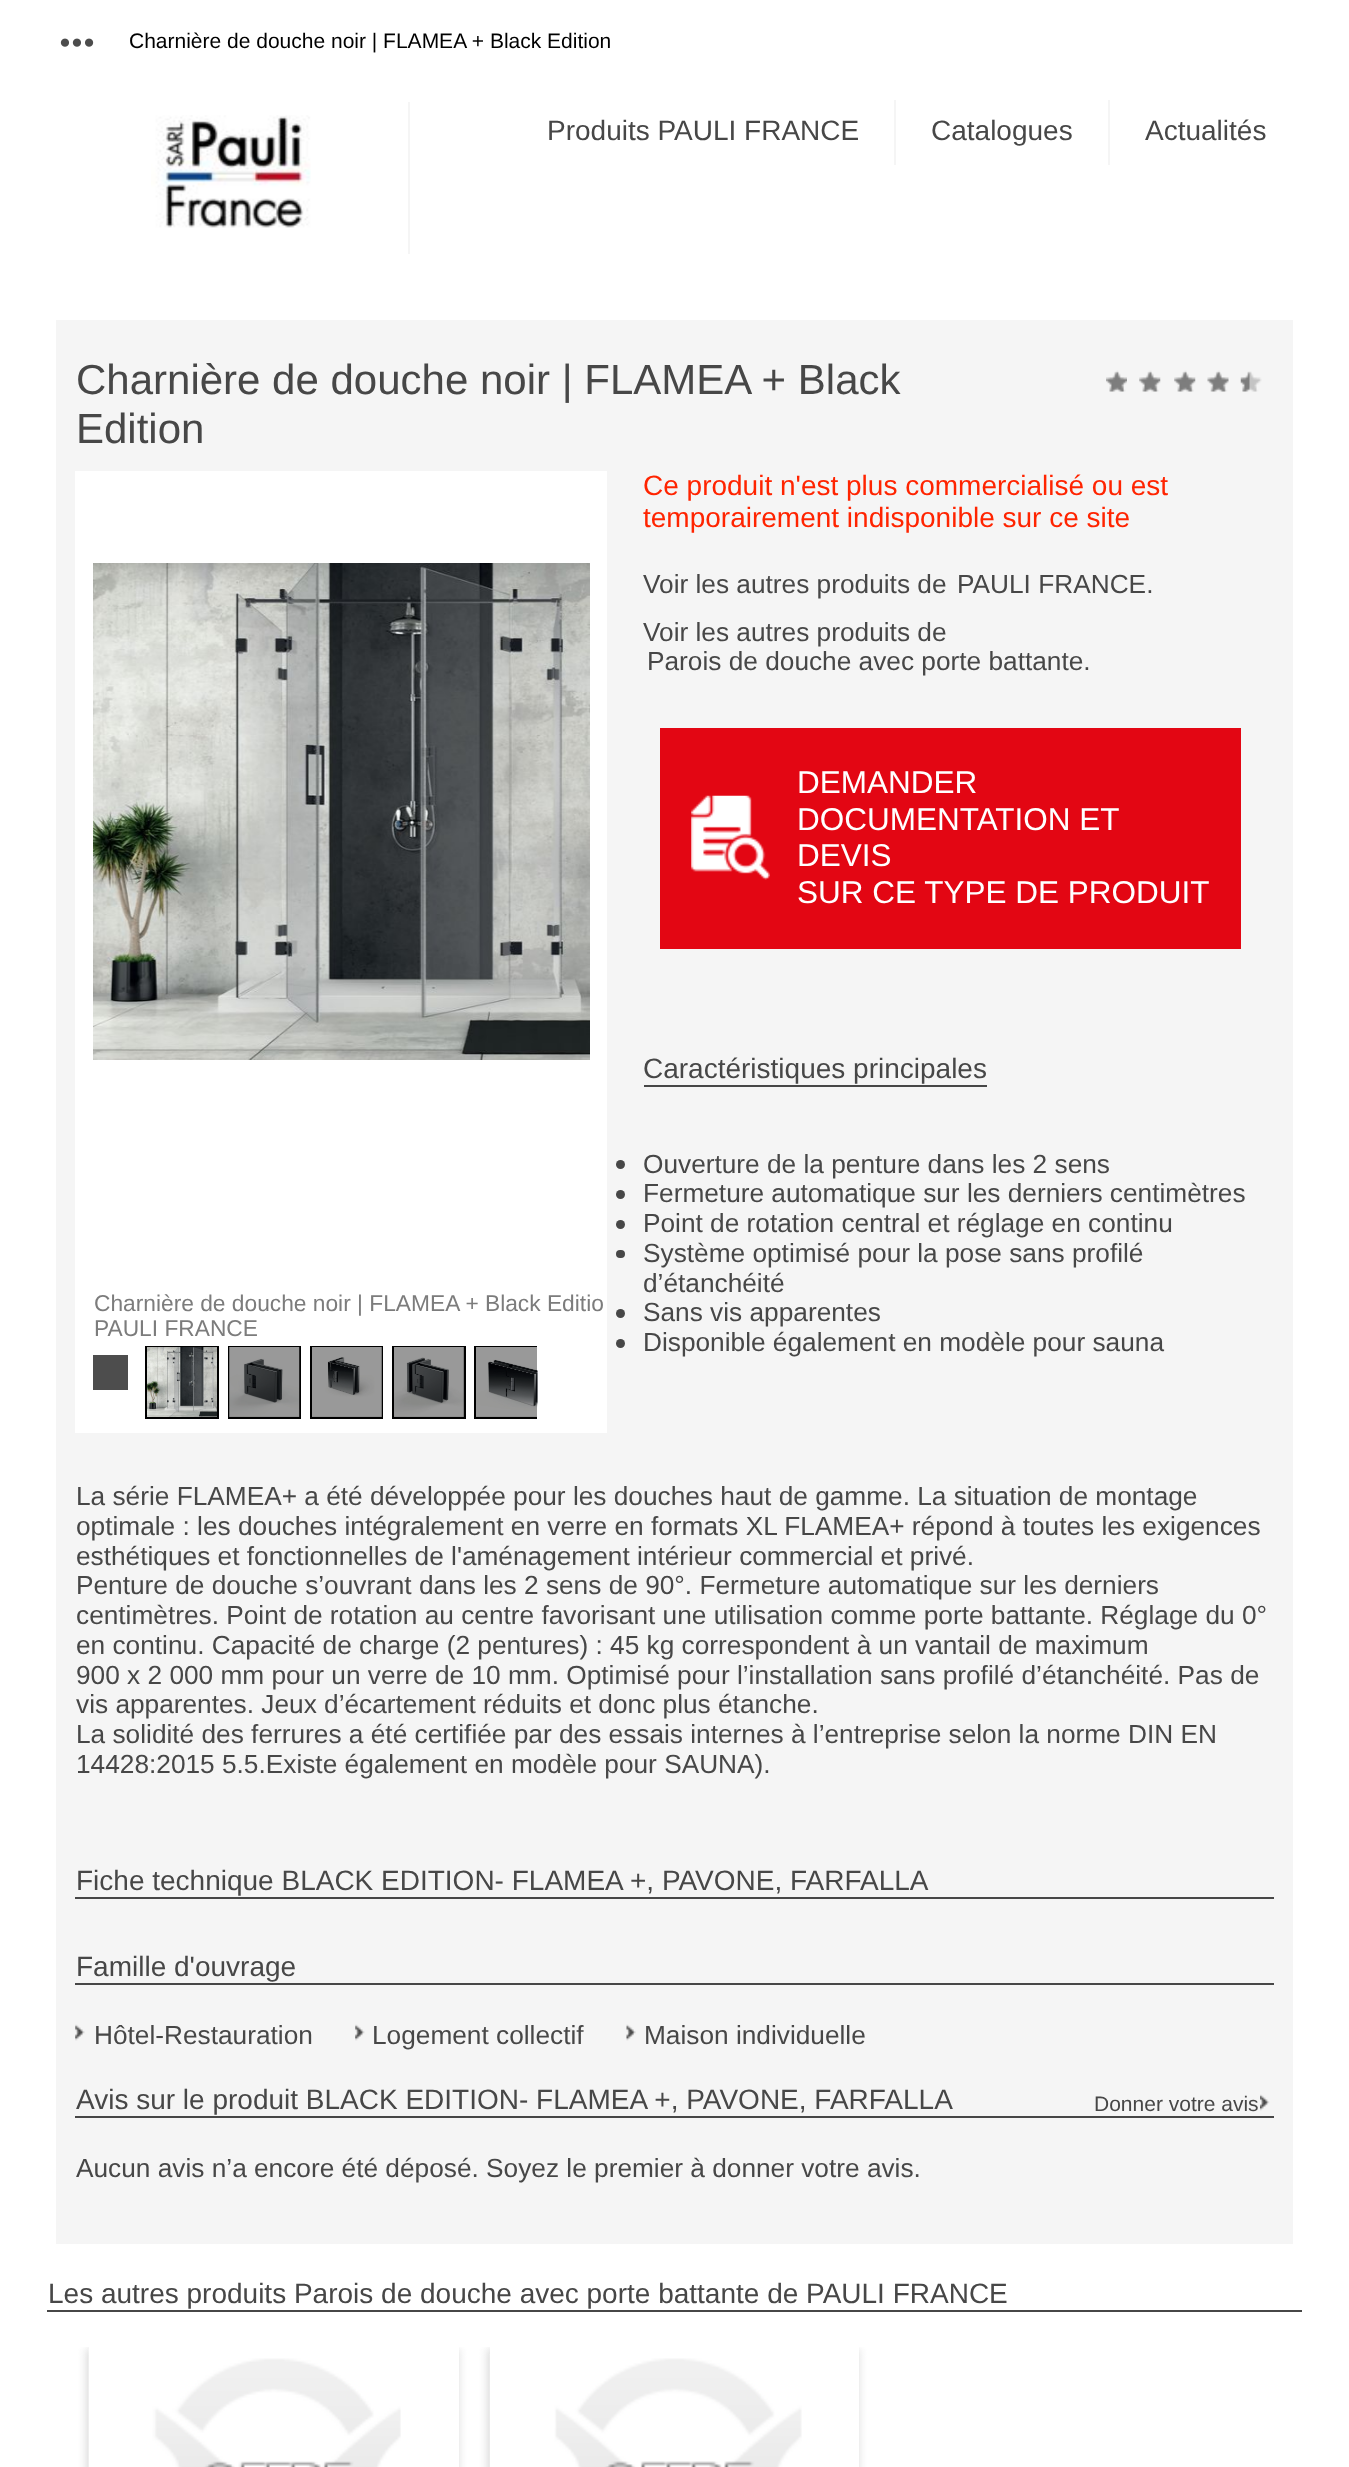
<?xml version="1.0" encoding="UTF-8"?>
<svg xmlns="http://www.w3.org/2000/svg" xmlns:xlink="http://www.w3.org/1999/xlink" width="1349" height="2467">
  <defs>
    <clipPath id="clip1"><rect x="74" y="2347" width="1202" height="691" /></clipPath>
    <clipPath id="clip2"><path d="M 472 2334 h 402 v 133 h -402 z m 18 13 h 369 v 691 h -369 z" clip-rule="evenodd" /></clipPath>
  </defs>
  <rect width="100%" height="100%" fill="#ffffff" />
  <image x="60" y="38" width="34" height="9" xlink:href="image1.png" />
  <rect x="408" y="102" width="2" height="152" fill="#f5f5f5" />
  <image x="151" y="115" width="160" height="113" xlink:href="image2.png" />
  <rect x="894" y="100" width="2" height="65" fill="#f5f5f5" />
  <rect x="1108" y="100" width="2" height="65" fill="#f5f5f5" />
  <rect x="56" y="320" width="1237" height="1924" fill="#f5f5f5" />
  <image x="1106" y="370" width="21" height="22" xlink:href="image3.png" />
  <image x="1139" y="370" width="22" height="22" xlink:href="image4.png" />
  <image x="1174" y="370" width="22" height="22" xlink:href="image4.png" />
  <image x="1207" y="370" width="22" height="22" xlink:href="image5.png" />
  <image x="1240" y="371" width="22" height="21" xlink:href="image6.png" />
  <rect x="660" y="728" width="581" height="221" fill="#e30613" />
  <image x="691" y="795" width="79" height="85" xlink:href="image7.png" />
  <rect x="644" y="1085" width="343" height="2" fill="#474747" />
  <circle cx="620.5" cy="1164.5" r="4.5" fill="#474747" />
  <circle cx="620.5" cy="1194.5" r="4.5" fill="#474747" />
  <circle cx="620.5" cy="1224.5" r="4.5" fill="#474747" />
  <rect x="616" y="1250" width="9" height="8" rx="4" fill="#474747" />
  <circle cx="620.5" cy="1313.5" r="4.5" fill="#474747" />
  <circle cx="620.5" cy="1343.5" r="4.5" fill="#474747" />
  <rect x="75" y="471" width="532" height="962" fill="#ffffff" />
  <image x="93" y="563" width="497" height="497" xlink:href="image8.png" />
  <rect x="93" y="1355" width="35" height="35" fill="#4d4d4d" />
  <rect x="145" y="1346" width="74" height="73" fill="#000000" />
  <image x="147" y="1347" width="70" height="70" xlink:href="image9.png" />
  <rect x="228" y="1346" width="73" height="73" fill="#000000" />
  <image x="229" y="1347" width="71" height="70" xlink:href="image10.png" />
  <rect x="310" y="1346" width="73" height="73" fill="#000000" />
  <image x="312" y="1347" width="70" height="70" xlink:href="image11.png" />
  <rect x="392" y="1346" width="74" height="73" fill="#000000" />
  <image x="394" y="1347" width="70" height="70" xlink:href="image12.png" />
  <rect x="474" y="1346" width="63" height="73" fill="#000000" />
  <image x="476" y="1347" width="62" height="70" xlink:href="image13.png" />
  <rect x="75" y="1897" width="1199" height="2" fill="#474747" />
  <rect x="75" y="1983" width="1199" height="2" fill="#474747" />
  <image x="75" y="2024" width="10" height="17" xlink:href="image14.png" />
  <image x="355" y="2024" width="10" height="17" xlink:href="image15.png" />
  <image x="626" y="2024" width="10" height="17" xlink:href="image16.png" />
  <rect x="75" y="2116" width="1199" height="2" fill="#474747" />
  <image x="1260" y="2094" width="10" height="17" xlink:href="image17.png" />
  <rect x="47" y="2310" width="1255" height="2" fill="#474747" />
  <g clip-path="url(#clip1)">
    <rect x="86" y="2349" width="373" height="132" fill="#dcdcdc" filter="blur(4.5px)" />
  </g>
  <rect x="89" y="2347" width="370" height="120" fill="#ffffff" />
  <image x="88" y="2349" width="313" height="118" xlink:href="image18.png" />
  <g clip-path="url(#clip1)">
    <g clip-path="url(#clip2)">
      <rect x="487" y="2349" width="372" height="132" fill="#dcdcdc" filter="blur(4.5px)" />
    </g>
  </g>
  <image x="489" y="2354" width="313" height="113" xlink:href="image19.png" />
  <text x="129" y="48" style="font-family: Liberation Sans; font-size: 21px; fill: #000000">Charnière de douche noir | FLAMEA + Black Edition</text>
  <text x="547" y="140" style="font-family: Liberation Sans; font-size: 28px; fill: #474747">Produits PAULI FRANCE</text>
  <text x="931" y="140" style="font-family: Liberation Sans; font-size: 28px; fill: #474747">Catalogues</text>
  <text x="1145" y="140" style="font-family: Liberation Sans; font-size: 28px; fill: #474747">Actualités</text>
  <text x="76" y="394" style="font-family: Liberation Sans; font-size: 42px; fill: #474747">Charnière de douche noir | FLAMEA + Black</text>
  <text x="76" y="443" style="font-family: Liberation Sans; font-size: 42px; fill: #474747">Edition</text>
  <text x="643" y="495" style="font-family: Liberation Sans; font-size: 28px; fill: #ff2400">Ce produit n'est plus commercialisé ou est</text>
  <text x="643" y="527" style="font-family: Liberation Sans; font-size: 28px; fill: #ff2400">temporairement indisponible sur ce site</text>
  <text x="643" y="593" style="font-family: Liberation Sans; font-size: 26.25px; fill: #474747">Voir les autres produits de</text>
  <text x="957" y="593" style="font-family: Liberation Sans; font-size: 26.25px; fill: #474747">PAULI FRANCE.</text>
  <text x="643" y="641" style="font-family: Liberation Sans; font-size: 26.25px; fill: #474747">Voir les autres produits de</text>
  <text x="647" y="670" style="font-family: Liberation Sans; font-size: 26.25px; fill: #474747">Parois de douche avec porte battante.</text>
  <text x="797" y="793" style="font-family: Liberation Sans; font-size: 31.5px; fill: #ffffff">DEMANDER</text>
  <text x="797" y="830" style="font-family: Liberation Sans; font-size: 31.5px; fill: #ffffff">DOCUMENTATION ET</text>
  <text x="797" y="866" style="font-family: Liberation Sans; font-size: 31.5px; fill: #ffffff">DEVIS</text>
  <text x="797" y="903" style="font-family: Liberation Sans; font-size: 31.5px; fill: #ffffff">SUR CE TYPE DE PRODUIT</text>
  <text x="643" y="1078" style="font-family: Liberation Sans; font-size: 28px; fill: #474747">Caractéristiques principales</text>
  <text x="643" y="1173" style="font-family: Liberation Sans; font-size: 26.25px; fill: #474747">Ouverture de la penture dans les 2 sens</text>
  <text x="643" y="1202" style="font-family: Liberation Sans; font-size: 26.25px; fill: #474747">Fermeture automatique sur les derniers centimètres</text>
  <text x="643" y="1232" style="font-family: Liberation Sans; font-size: 26.25px; fill: #474747">Point de rotation central et réglage en continu</text>
  <text x="643" y="1262" style="font-family: Liberation Sans; font-size: 26.25px; fill: #474747">Système optimisé pour la pose sans profilé</text>
  <text x="643" y="1292" style="font-family: Liberation Sans; font-size: 26.25px; fill: #474747">d’étanchéité</text>
  <text x="643" y="1321" style="font-family: Liberation Sans; font-size: 26.25px; fill: #474747">Sans vis apparentes</text>
  <text x="643" y="1351" style="font-family: Liberation Sans; font-size: 26.25px; fill: #474747">Disponible également en modèle pour sauna</text>
  <text x="76" y="1505" style="font-family: Liberation Sans; font-size: 26.25px; fill: #474747">La série FLAMEA+ a été développée pour les douches haut de gamme. La situation de montage</text>
  <text x="76" y="1535" style="font-family: Liberation Sans; font-size: 26.25px; fill: #474747">optimale : les douches intégralement en verre en formats XL FLAMEA+ répond à toutes les exigences</text>
  <text x="76" y="1565" style="font-family: Liberation Sans; font-size: 26.25px; fill: #474747">esthétiques et fonctionnelles de l'aménagement intérieur commercial et privé.</text>
  <text x="76" y="1594" style="font-family: Liberation Sans; font-size: 26.25px; fill: #474747">Penture de douche s’ouvrant dans les 2 sens de 90°. Fermeture automatique sur les derniers</text>
  <text x="76" y="1624" style="font-family: Liberation Sans; font-size: 26.25px; fill: #474747">centimètres. Point de rotation au centre favorisant une utilisation comme porte battante. Réglage du 0°</text>
  <text x="76" y="1654" style="font-family: Liberation Sans; font-size: 26.25px; fill: #474747">en continu. Capacité de charge (2 pentures) : 45 kg correspondent à un vantail de maximum</text>
  <text x="76" y="1684" style="font-family: Liberation Sans; font-size: 26.25px; fill: #474747">900 x 2 000 mm pour un verre de 10 mm. Optimisé pour l’installation sans profilé d’étanchéité. Pas de</text>
  <text x="76" y="1713" style="font-family: Liberation Sans; font-size: 26.25px; fill: #474747">vis apparentes. Jeux d’écartement réduits et donc plus étanche.</text>
  <text x="76" y="1743" style="font-family: Liberation Sans; font-size: 26.25px; fill: #474747">La solidité des ferrures a été certifiée par des essais internes à l’entreprise selon la norme DIN EN</text>
  <text x="76" y="1773" style="font-family: Liberation Sans; font-size: 26.25px; fill: #474747">14428:2015 5.5.Existe également en modèle pour SAUNA).</text>
  <text x="94" y="1311" style="font-family: Liberation Sans; font-size: 22.75px; fill: #7c7c7c">Charnière de douche noir | FLAMEA + Black Editio</text>
  <text x="94" y="1336" style="font-family: Liberation Sans; font-size: 22.75px; fill: #7c7c7c">PAULI FRANCE</text>
  <text x="76" y="1890" style="font-family: Liberation Sans; font-size: 28px; fill: #474747">Fiche technique BLACK EDITION- FLAMEA +, PAVONE, FARFALLA</text>
  <text x="76" y="1976" style="font-family: Liberation Sans; font-size: 28px; fill: #474747">Famille d'ouvrage</text>
  <text x="94" y="2044" style="font-family: Liberation Sans; font-size: 26.25px; fill: #474747">Hôtel-Restauration</text>
  <text x="372" y="2044" style="font-family: Liberation Sans; font-size: 26.25px; fill: #474747">Logement collectif</text>
  <text x="644" y="2044" style="font-family: Liberation Sans; font-size: 26.25px; fill: #474747">Maison individuelle</text>
  <text x="76" y="2109" style="font-family: Liberation Sans; font-size: 28px; fill: #474747">Avis sur le produit BLACK EDITION- FLAMEA +, PAVONE, FARFALLA</text>
  <text x="1094" y="2111" style="font-family: Liberation Sans; font-size: 21px; fill: #474747">Donner votre avis</text>
  <text x="76" y="2177" style="font-family: Liberation Sans; font-size: 26.25px; fill: #474747">Aucun avis n’a encore été déposé. Soyez le premier à donner votre avis.</text>
  <text x="48" y="2303" style="font-family: Liberation Sans; font-size: 28px; fill: #474747">Les autres produits Parois de douche avec porte battante de PAULI FRANCE</text>
</svg>
